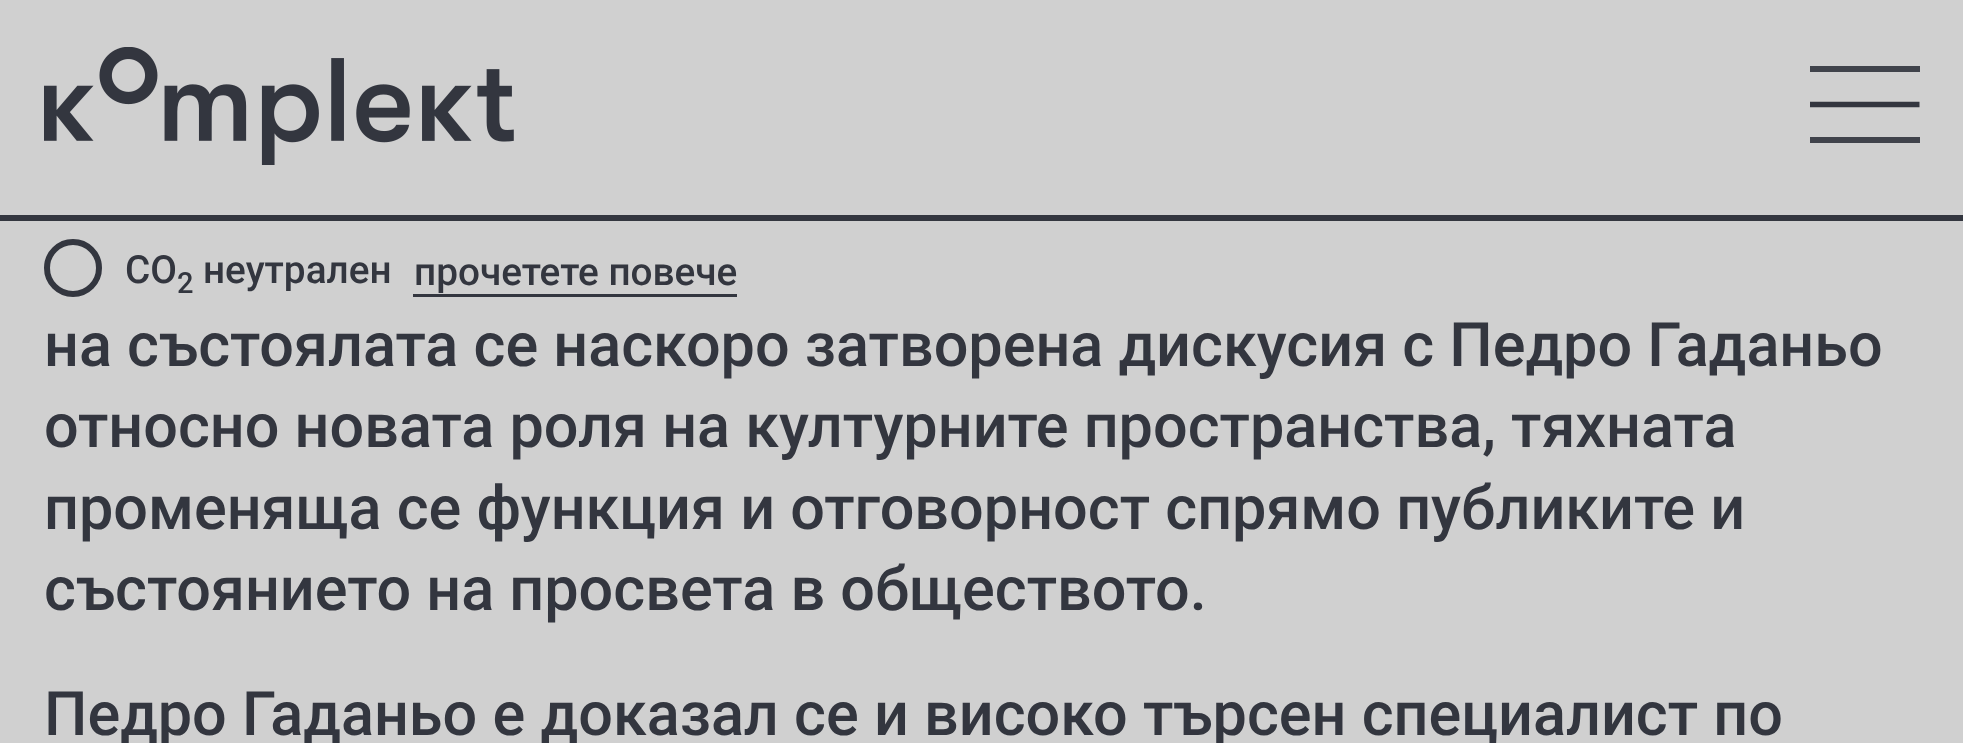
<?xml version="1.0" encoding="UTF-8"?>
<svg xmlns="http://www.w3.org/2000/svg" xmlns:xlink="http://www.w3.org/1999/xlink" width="1963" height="743">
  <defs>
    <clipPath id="clip1"><rect x="1810" y="66" width="110" height="77" /></clipPath>
  </defs>
  <rect width="100%" height="100%" fill="#d0d0d0" />
  <rect y="215" width="1963" height="6" fill="#33363f" />
  <image x="44" y="47" width="470" height="118" xlink:href="image1.png" />
  <rect x="1810" y="66" width="110" height="6" fill="#40434b" />
  <g clip-path="url(#clip1)">
    <path d="M 1809.5 104.5 h 110" fill="none" stroke="#33363f" stroke-width="5.5" />
  </g>
  <rect x="1810" y="137" width="110" height="6" fill="#40434b" />
  <circle cx="73" cy="268" r="26" fill="none" stroke="#33363f" stroke-width="6" />
  <rect x="413" y="294" width="324" height="3" fill="#33363f" />
  <text x="125" y="283" style="font-family: Roboto; font-size: 38.75px; font-weight: 500; fill: #33363f">CO</text>
  <text x="177" y="293" style="font-family: Roboto; font-size: 29px; font-weight: 500; fill: #33363f">2</text>
  <text x="203" y="283" style="font-family: Roboto; font-size: 38.75px; font-weight: 500; fill: #33363f">неутрален</text>
  <text x="414" y="285" style="font-family: Roboto; font-size: 38.75px; font-weight: 500; fill: #33363f">прочетете повече</text>
  <text x="44" y="366" style="font-family: Roboto; font-size: 61.15px; font-weight: 500; fill: #33363f">на състоялата се наскоро затворена дискусия с Педро Гаданьо</text>
  <text x="44" y="447" style="font-family: Roboto; font-size: 61.15px; font-weight: 500; fill: #33363f">относно новата роля на културните пространства, тяхната</text>
  <text x="44" y="529" style="font-family: Roboto; font-size: 61.15px; font-weight: 500; fill: #33363f">променяща се функция и отговорност спрямо публиките и</text>
  <text x="44" y="610" style="font-family: Roboto; font-size: 61.15px; font-weight: 500; fill: #33363f">състоянието на просвета в обществото.</text>
  <text x="44" y="735" style="font-family: Roboto; font-size: 61.15px; font-weight: 500; fill: #33363f">Педро Гаданьо е доказал се и високо търсен специалист по</text>
</svg>
